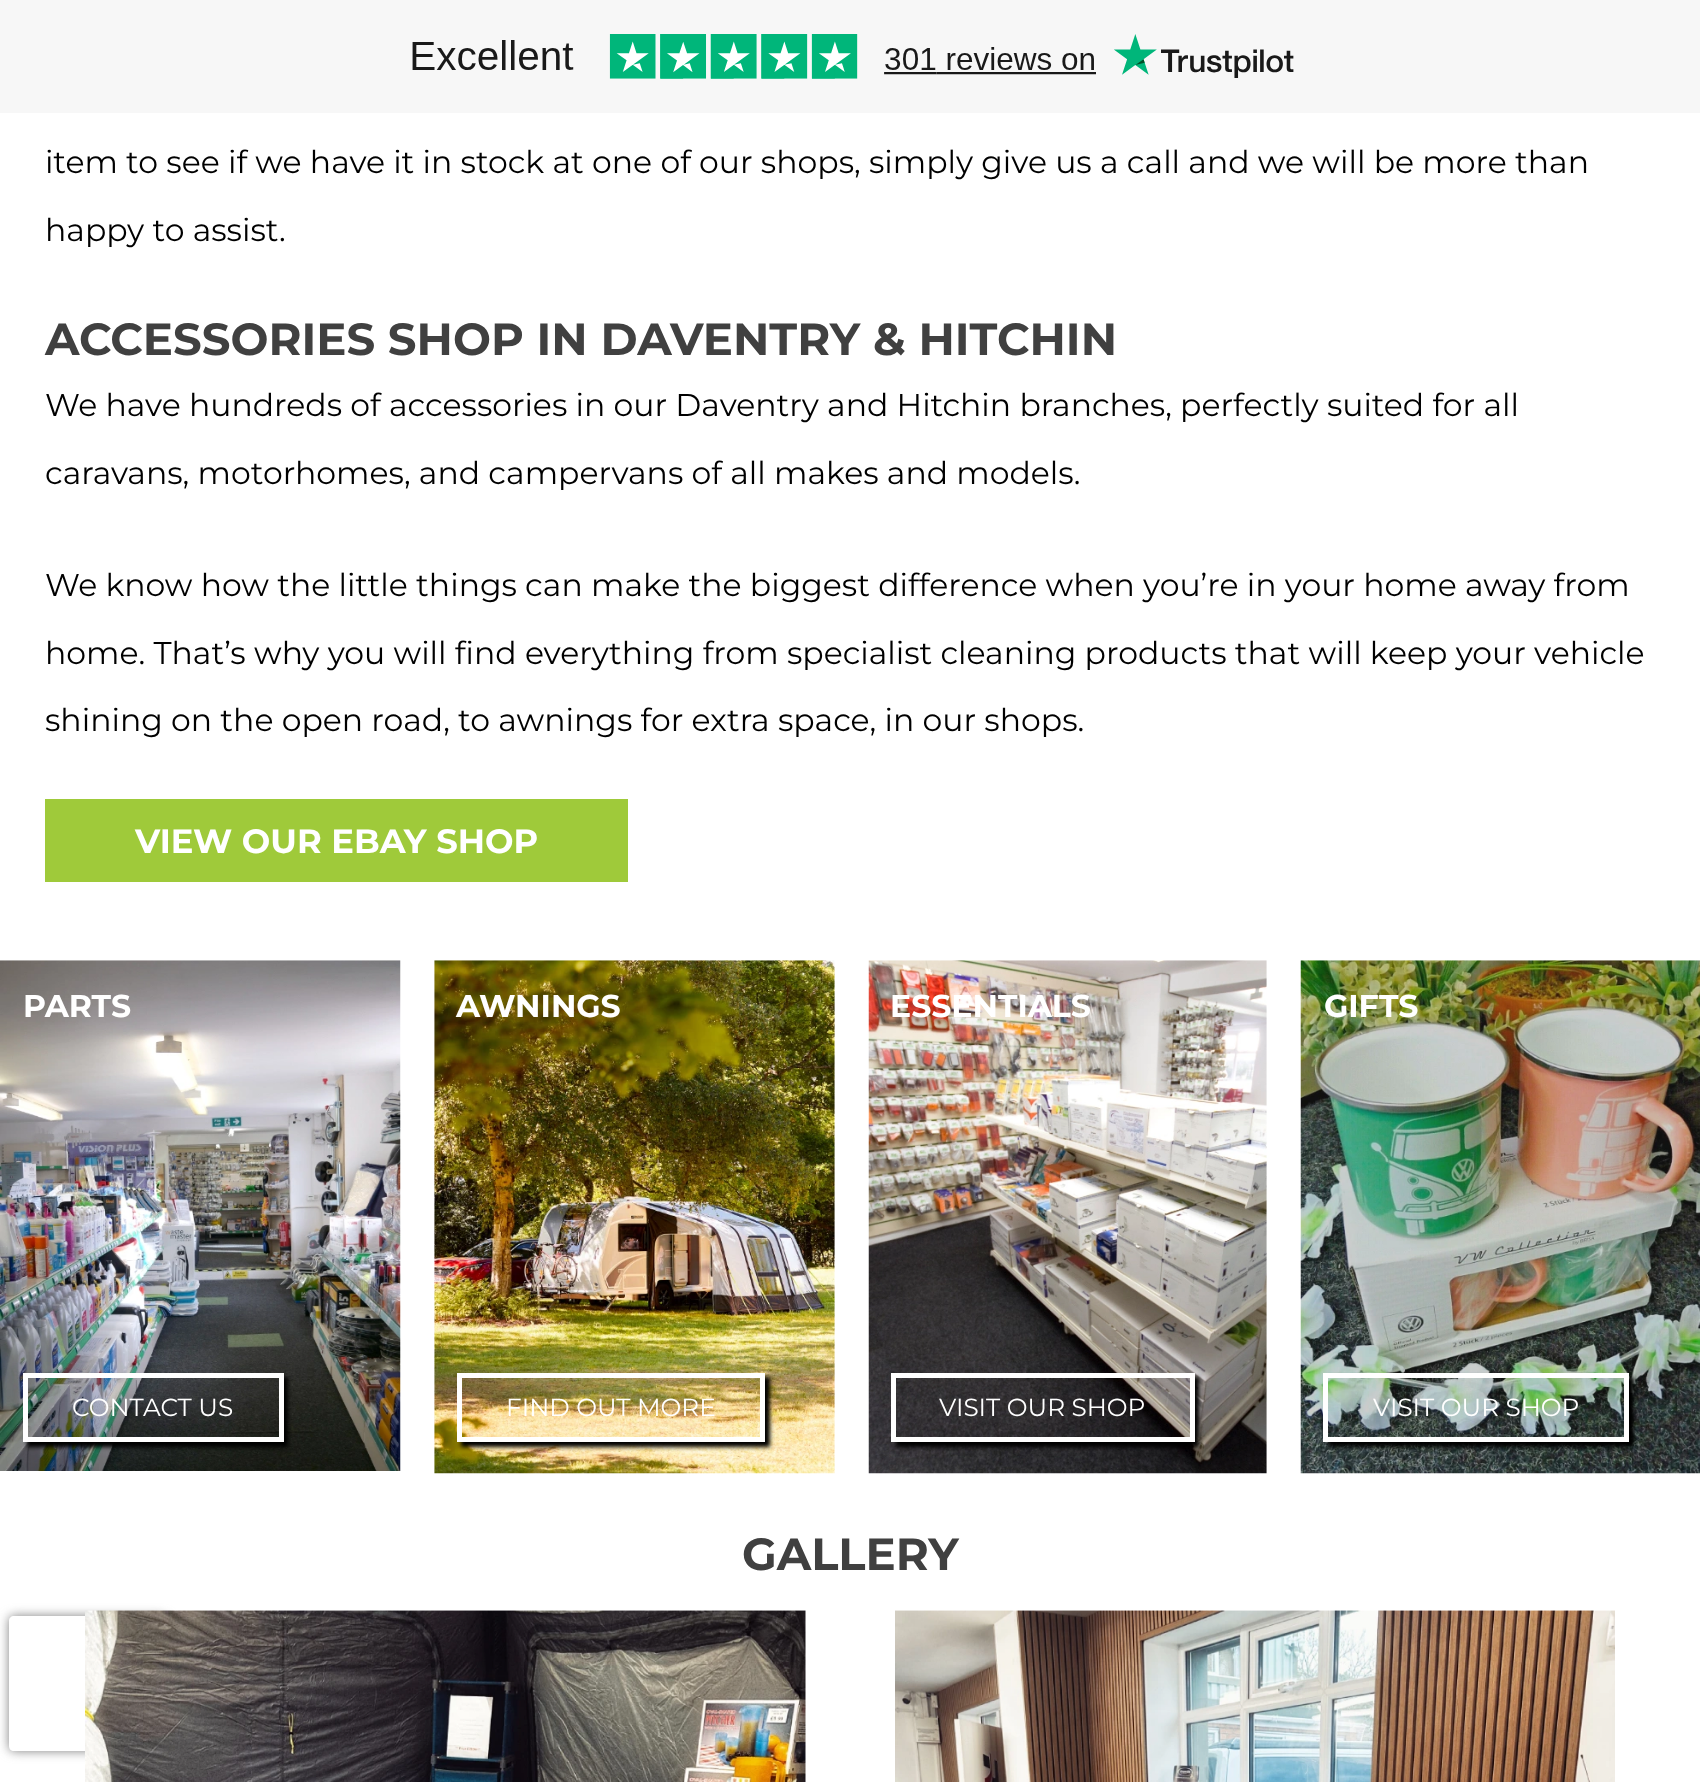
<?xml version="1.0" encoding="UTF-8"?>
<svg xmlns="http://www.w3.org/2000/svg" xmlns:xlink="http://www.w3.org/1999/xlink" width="1700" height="1782">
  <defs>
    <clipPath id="clip1"><path d="M 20 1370 h 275 v 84 h -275 z m 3 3 h 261 v 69 h -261 z" clip-rule="evenodd" /></clipPath>
    <clipPath id="clip2"><path d="M 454 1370 h 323 v 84 h -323 z m 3 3 h 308 v 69 h -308 z" clip-rule="evenodd" /></clipPath>
    <clipPath id="clip3"><path d="M 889 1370 h 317 v 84 h -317 z m 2 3 h 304 v 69 h -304 z" clip-rule="evenodd" /></clipPath>
    <clipPath id="clip4"><path d="M 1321 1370 h 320 v 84 h -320 z m 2 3 h 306 v 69 h -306 z" clip-rule="evenodd" /></clipPath>
    <clipPath id="clip5"><path d="M 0 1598 h 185 v 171 h -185 z m 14 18 h 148 c 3 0 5 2 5 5 v 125 c 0 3 -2 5 -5 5 h -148 c -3 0 -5 -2 -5 -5 v -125 c 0 -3 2 -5 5 -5 z" clip-rule="evenodd" /></clipPath>
  </defs>
  <rect width="100%" height="100%" fill="#ffffff" />
  <rect width="1700" height="113" fill="#f7f7f7" />
  <image x="412" y="34" width="882" height="45" xlink:href="image1.png" />
  <rect x="45" y="799" width="583" height="83" fill="#9fca3a" />
  <image x="0" y="960" width="401" height="511" xlink:href="image2.png" />
  <g clip-path="url(#clip1)">
    <rect x="27" y="1377" width="261" height="70" fill="#000000" filter="blur(2px)" />
  </g>
  <rect x="25.5" y="1375.5" width="256" height="64" fill="none" stroke="#ffffff" stroke-width="5" />
  <image x="434" y="960" width="401" height="514" xlink:href="image3.png" />
  <g clip-path="url(#clip2)">
    <rect x="461" y="1377" width="309" height="70" fill="#000000" filter="blur(2px)" />
  </g>
  <rect x="459.5" y="1375.5" width="303" height="64" fill="none" stroke="#ffffff" stroke-width="5" />
  <image x="868" y="960" width="399" height="514" xlink:href="image4.png" />
  <g clip-path="url(#clip3)">
    <rect x="896" y="1377" width="303" height="70" fill="#000000" filter="blur(2px)" />
  </g>
  <rect x="893.5" y="1375.5" width="299" height="64" fill="none" stroke="#ffffff" stroke-width="5" />
  <image x="1300" y="960" width="400" height="514" xlink:href="image5.png" />
  <g clip-path="url(#clip4)">
    <rect x="1328" y="1377" width="306" height="70" fill="#000000" filter="blur(2px)" />
  </g>
  <rect x="1325.5" y="1375.5" width="301" height="64" fill="none" stroke="#ffffff" stroke-width="5" />
  <g clip-path="url(#clip5)">
    <rect x="9" y="1616" width="158" height="135" rx="5" fill="#808080" filter="blur(5.5px)" />
  </g>
  <image x="85" y="1610" width="721" height="172" xlink:href="image6.png" />
  <image x="895" y="1610" width="720" height="172" xlink:href="image7.png" />
  <text x="45" y="173" style="font-family: Montserrat; font-size: 31.5px; fill: #000000">item to see if we have it in stock at one of our shops, simply give us a call and we will be more than</text>
  <text x="45" y="241" style="font-family: Montserrat; font-size: 31.5px; fill: #000000">happy to assist.</text>
  <text x="45" y="355" style="font-family: Montserrat; font-size: 45px; font-weight: bold; fill: #404040">ACCESSORIES SHOP IN DAVENTRY &amp; HITCHIN</text>
  <text x="45" y="416" style="font-family: Montserrat; font-size: 31.5px; fill: #000000">We have hundreds of accessories in our Daventry and Hitchin branches, perfectly suited for all</text>
  <text x="45" y="484" style="font-family: Montserrat; font-size: 31.5px; fill: #000000">caravans, motorhomes, and campervans of all makes and models.</text>
  <text x="45" y="596" style="font-family: Montserrat; font-size: 31.5px; fill: #000000">We know how the little things can make the biggest difference when you’re in your home away from</text>
  <text x="45" y="664" style="font-family: Montserrat; font-size: 31.5px; fill: #000000">home. That’s why you will find everything from specialist cleaning products that will keep your vehicle</text>
  <text x="45" y="731" style="font-family: Montserrat; font-size: 31.5px; fill: #000000">shining on the open road, to awnings for extra space, in our shops.</text>
  <text x="135" y="853" style="font-family: Montserrat; font-size: 33.75px; font-weight: bold; fill: #ffffff">VIEW OUR EBAY SHOP</text>
  <text x="23" y="1017" style="font-family: Montserrat; font-size: 31.5px; font-weight: bold; fill: #ffffff">PARTS</text>
  <text x="72" y="1416" style="font-family: Montserrat; font-size: 24.75px; fill: #ffffff">CONTACT US</text>
  <text x="456" y="1017" style="font-family: Montserrat; font-size: 31.5px; font-weight: bold; fill: #ffffff">AWNINGS</text>
  <text x="506" y="1416" style="font-family: Montserrat; font-size: 24.75px; fill: #ffffff">FIND OUT MORE</text>
  <text x="890" y="1017" style="font-family: Montserrat; font-size: 31.5px; font-weight: bold; fill: #ffffff">ESSENTIALS</text>
  <text x="939" y="1416" style="font-family: Montserrat; font-size: 24.75px; fill: #ffffff">VISIT OUR SHOP</text>
  <text x="1324" y="1017" style="font-family: Montserrat; font-size: 31.5px; font-weight: bold; fill: #ffffff">GIFTS</text>
  <text x="1373" y="1416" style="font-family: Montserrat; font-size: 24.75px; fill: #ffffff">VISIT OUR SHOP</text>
  <text x="742" y="1570" style="font-family: Montserrat; font-size: 45px; font-weight: bold; fill: #404040">GALLERY</text>
</svg>
